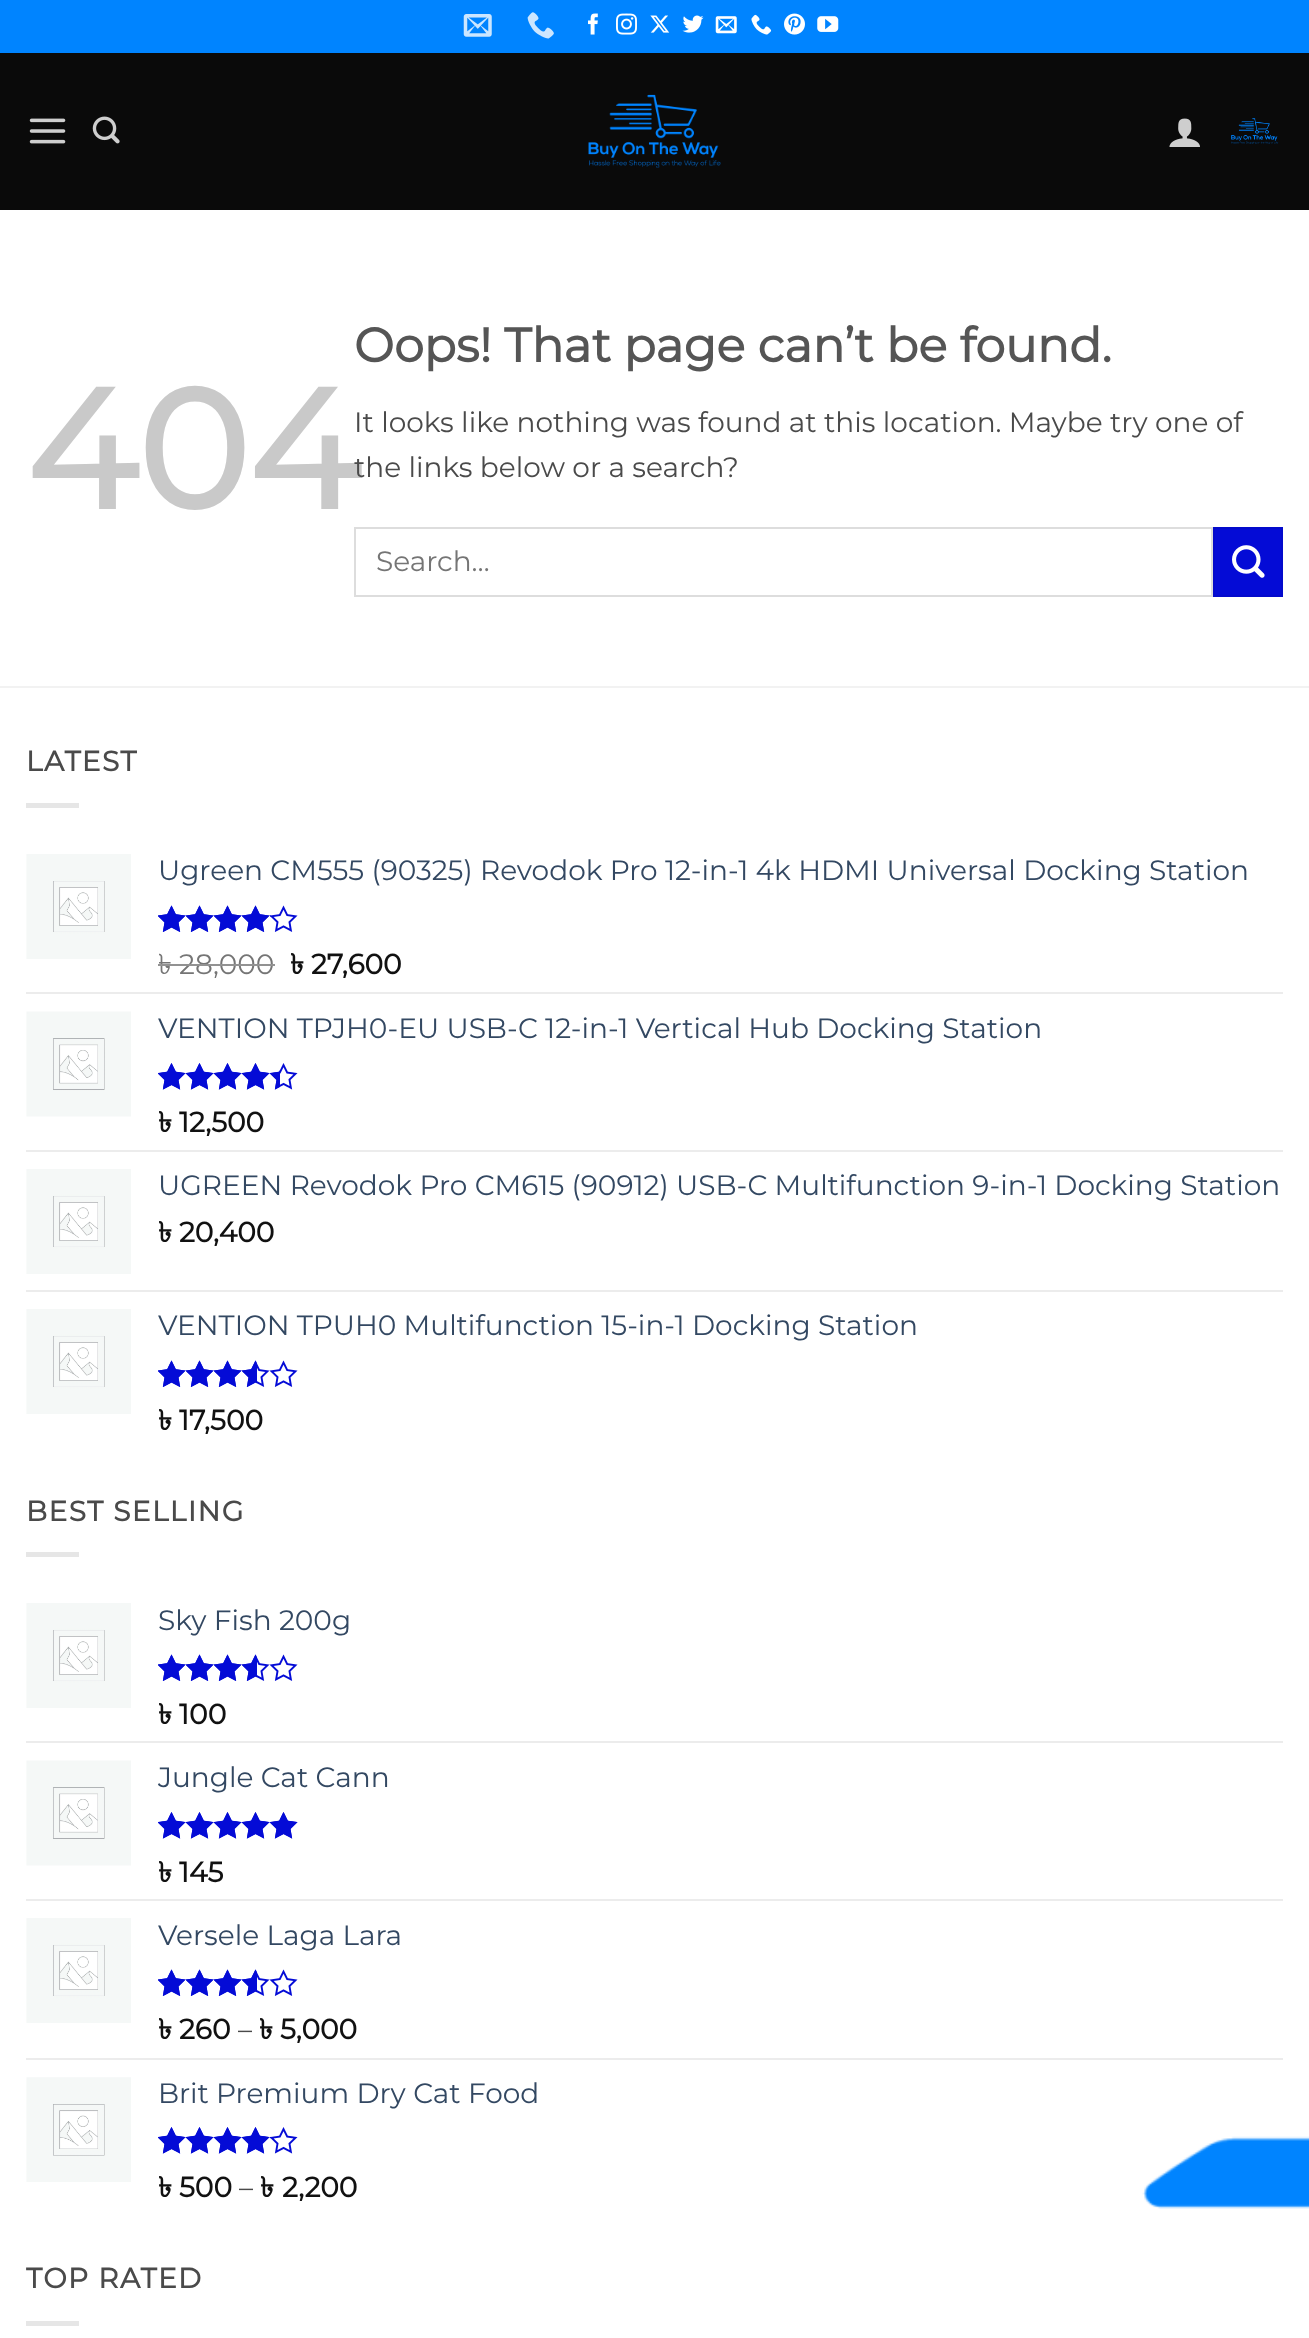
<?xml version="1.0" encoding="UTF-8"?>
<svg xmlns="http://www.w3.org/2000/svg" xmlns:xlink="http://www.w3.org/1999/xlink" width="1309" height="2338">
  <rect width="100%" height="100%" fill="#ffffff" />
  <rect width="1309" height="53" fill="#0084ff" />
  <image x="463" y="14" width="29" height="23" xlink:href="image1.png" />
  <image x="527" y="12" width="27" height="27" xlink:href="image2.png" />
  <image x="588" y="13" width="10" height="22" xlink:href="image3.png" />
  <image x="616" y="13" width="21" height="22" xlink:href="image4.png" />
  <image x="650" y="15" width="20" height="18" xlink:href="image5.png" />
  <image x="682" y="15" width="22" height="18" xlink:href="image6.png" />
  <image x="715" y="16" width="22" height="18" xlink:href="image7.png" />
  <image x="751" y="14" width="21" height="21" xlink:href="image8.png" />
  <image x="784" y="13" width="21" height="22" xlink:href="image9.png" />
  <image x="817" y="16" width="22" height="16" xlink:href="image10.png" />
  <rect y="53" width="1309" height="157" fill="#0a0a0a" />
  <image x="29" y="118" width="37" height="26" xlink:href="image11.png" />
  <image x="92" y="116" width="28" height="28" xlink:href="image12.png" />
  <image x="588" y="94" width="133" height="74" xlink:href="image13.png" />
  <image x="1169" y="118" width="31" height="29" xlink:href="image14.png" />
  <image x="1231" y="118" width="48" height="26" xlink:href="image15.png" />
  <rect x="355" y="528" width="857" height="68" fill="none" stroke="#dddddd" stroke-width="2" />
  <rect x="1214" y="528" width="68" height="68" fill="#040bd6" stroke="#040acb" stroke-width="2" />
  <image x="1232" y="545" width="33" height="33" xlink:href="image16.png" />
  <image x="1142" y="2136" width="167" height="73" xlink:href="image17.png" />
  <rect y="686" width="1309" height="2" fill="#f2f2f2" />
  <rect x="26" y="803" width="53" height="5" fill="#e6e6e6" />
  <image x="26" y="854" width="105" height="105" xlink:href="image18.png" />
  <image x="158" y="905" width="140" height="27" xlink:href="image19.png" />
  <image x="158" y="905" width="113" height="27" xlink:href="image20.png" />
  <rect x="26" y="992" width="1257" height="2" fill="#ececec" />
  <image x="26" y="1011" width="105" height="106" xlink:href="image21.png" />
  <image x="158" y="1063" width="140" height="27" xlink:href="image22.png" />
  <image x="158" y="1063" width="122" height="27" xlink:href="image23.png" />
  <rect x="26" y="1150" width="1257" height="2" fill="#ececec" />
  <image x="26" y="1169" width="105" height="105" xlink:href="image24.png" />
  <rect x="26" y="1290" width="1257" height="2" fill="#ececec" />
  <image x="26" y="1309" width="105" height="105" xlink:href="image25.png" />
  <image x="158" y="1360" width="140" height="27" xlink:href="image19.png" />
  <image x="158" y="1360" width="99" height="27" xlink:href="image26.png" />
  <rect x="26" y="1552" width="53" height="5" fill="#e6e6e6" />
  <image x="26" y="1603" width="105" height="105" xlink:href="image27.png" />
  <image x="158" y="1654" width="140" height="27" xlink:href="image19.png" />
  <image x="158" y="1654" width="99" height="27" xlink:href="image26.png" />
  <rect x="26" y="1741" width="1257" height="2" fill="#ececec" />
  <image x="26" y="1760" width="105" height="106" xlink:href="image28.png" />
  <image x="158" y="1812" width="140" height="27" xlink:href="image22.png" />
  <image x="158" y="1812" width="140" height="27" xlink:href="image29.png" />
  <rect x="26" y="1899" width="1257" height="2" fill="#ececec" />
  <image x="26" y="1918" width="105" height="105" xlink:href="image24.png" />
  <image x="158" y="1969" width="140" height="27" xlink:href="image19.png" />
  <image x="158" y="1969" width="99" height="27" xlink:href="image26.png" />
  <rect x="26" y="2058" width="1257" height="2" fill="#ececec" />
  <image x="26" y="2077" width="105" height="105" xlink:href="image30.png" />
  <image x="158" y="2127" width="140" height="27" xlink:href="image22.png" />
  <image x="158" y="2127" width="113" height="27" xlink:href="image31.png" />
  <rect x="26" y="2321" width="53" height="5" fill="#e6e6e6" />
  <text x="26" y="509" style="font-family: Montserrat; font-size: 168px; font-weight: bold; fill: #c9c9c9">404</text>
  <text x="354" y="362" style="font-family: Montserrat; font-size: 47.6px; font-weight: bold; fill: #555555">Oops! That page can’t be found.</text>
  <text x="354" y="432" style="font-family: Montserrat; font-size: 28px; font-weight: 100; fill: #4a4a4a">It looks like nothing was found at this location. Maybe try one of</text>
  <text x="354" y="477" style="font-family: Montserrat; font-size: 28px; font-weight: 100; fill: #4a4a4a">the links below or a search?</text>
  <text x="376" y="571" style="font-family: Montserrat; font-size: 28px; font-weight: 100; fill: #757575">Search…</text>
  <text x="26" y="771" style="font-family: Montserrat; font-size: 28px; font-weight: bold; letter-spacing: 1.4px; fill: #4a4a4a">LATEST</text>
  <text x="158" y="880" style="font-family: Montserrat; font-size: 28px; font-weight: 100; fill: #334862">Ugreen CM555 (90325) Revodok Pro 12-in-1 4k HDMI Universal Docking Station</text>
  <text x="158" y="974" style="font-family: Lohit Bengali; font-size: 28px; fill: #757575">৳</text>
  <rect x="158" y="964" width="21" height="2" fill="#929292" />
  <text x="179" y="974" style="font-family: Montserrat; font-size: 28px; font-weight: 100; fill: #757575">28,000</text>
  <rect x="179" y="964" width="96" height="2" fill="#929292" />
  <text x="290" y="974" style="font-family: Lohit Bengali; font-size: 28px; font-weight: bold; fill: #111111">৳</text>
  <text x="311" y="974" style="font-family: Montserrat; font-size: 28px; font-weight: bold; fill: #111111">27,600</text>
  <text x="158" y="1038" style="font-family: Montserrat; font-size: 28px; font-weight: 100; fill: #334862">VENTION TPJH0-EU USB-C 12-in-1 Vertical Hub Docking Station</text>
  <text x="158" y="1132" style="font-family: Lohit Bengali; font-size: 28px; font-weight: bold; fill: #111111">৳</text>
  <text x="179" y="1132" style="font-family: Montserrat; font-size: 28px; font-weight: bold; fill: #111111">12,500</text>
  <text x="158" y="1195" style="font-family: Montserrat; font-size: 28px; font-weight: 100; fill: #334862">UGREEN Revodok Pro CM615 (90912) USB-C Multifunction 9-in-1 Docking Station</text>
  <text x="158" y="1242" style="font-family: Lohit Bengali; font-size: 28px; font-weight: bold; fill: #111111">৳</text>
  <text x="179" y="1242" style="font-family: Montserrat; font-size: 28px; font-weight: bold; fill: #111111">20,400</text>
  <text x="158" y="1335" style="font-family: Montserrat; font-size: 28px; font-weight: 100; fill: #334862">VENTION TPUH0 Multifunction 15-in-1 Docking Station</text>
  <text x="158" y="1430" style="font-family: Lohit Bengali; font-size: 28px; font-weight: bold; fill: #111111">৳</text>
  <text x="179" y="1430" style="font-family: Montserrat; font-size: 28px; font-weight: bold; fill: #111111">17,500</text>
  <text x="26" y="1521" style="font-family: Montserrat; font-size: 28px; font-weight: bold; letter-spacing: 1.4px; fill: #4a4a4a">BEST SELLING</text>
  <text x="158" y="1630" style="font-family: Montserrat; font-size: 28px; font-weight: 100; fill: #334862">Sky Fish 200g</text>
  <text x="158" y="1724" style="font-family: Lohit Bengali; font-size: 28px; font-weight: bold; fill: #111111">৳</text>
  <text x="179" y="1724" style="font-family: Montserrat; font-size: 28px; font-weight: bold; fill: #111111">100</text>
  <text x="158" y="1787" style="font-family: Montserrat; font-size: 28px; font-weight: 100; fill: #334862">Jungle Cat Cann</text>
  <text x="158" y="1882" style="font-family: Lohit Bengali; font-size: 28px; font-weight: bold; fill: #111111">৳</text>
  <text x="179" y="1882" style="font-family: Montserrat; font-size: 28px; font-weight: bold; fill: #111111">145</text>
  <text x="158" y="1945" style="font-family: Montserrat; font-size: 28px; font-weight: 100; fill: #334862">Versele Laga Lara</text>
  <text x="158" y="2039" style="font-family: Lohit Bengali; font-size: 28px; font-weight: bold; fill: #111111">৳</text>
  <text x="179" y="2039" style="font-family: Montserrat; font-size: 28px; font-weight: bold; fill: #111111">260</text>
  <text x="238" y="2039" style="font-family: Montserrat; font-size: 28px; font-weight: 100; fill: #4a4a4a">–</text>
  <text x="259" y="2039" style="font-family: Lohit Bengali; font-size: 28px; font-weight: bold; fill: #111111">৳</text>
  <text x="280" y="2039" style="font-family: Montserrat; font-size: 28px; font-weight: bold; fill: #111111">5,000</text>
  <text x="158" y="2103" style="font-family: Montserrat; font-size: 28px; font-weight: 100; fill: #334862">Brit Premium Dry Cat Food</text>
  <text x="158" y="2197" style="font-family: Lohit Bengali; font-size: 28px; font-weight: bold; fill: #111111">৳</text>
  <text x="179" y="2197" style="font-family: Montserrat; font-size: 28px; font-weight: bold; fill: #111111">500</text>
  <text x="239" y="2197" style="font-family: Montserrat; font-size: 28px; font-weight: 100; fill: #4a4a4a">–</text>
  <text x="260" y="2197" style="font-family: Lohit Bengali; font-size: 28px; font-weight: bold; fill: #111111">৳</text>
  <text x="282" y="2197" style="font-family: Montserrat; font-size: 28px; font-weight: bold; fill: #111111">2,200</text>
  <text x="26" y="2288" style="font-family: Montserrat; font-size: 28px; font-weight: bold; letter-spacing: 1.4px; fill: #4a4a4a">TOP RATED</text>
</svg>
